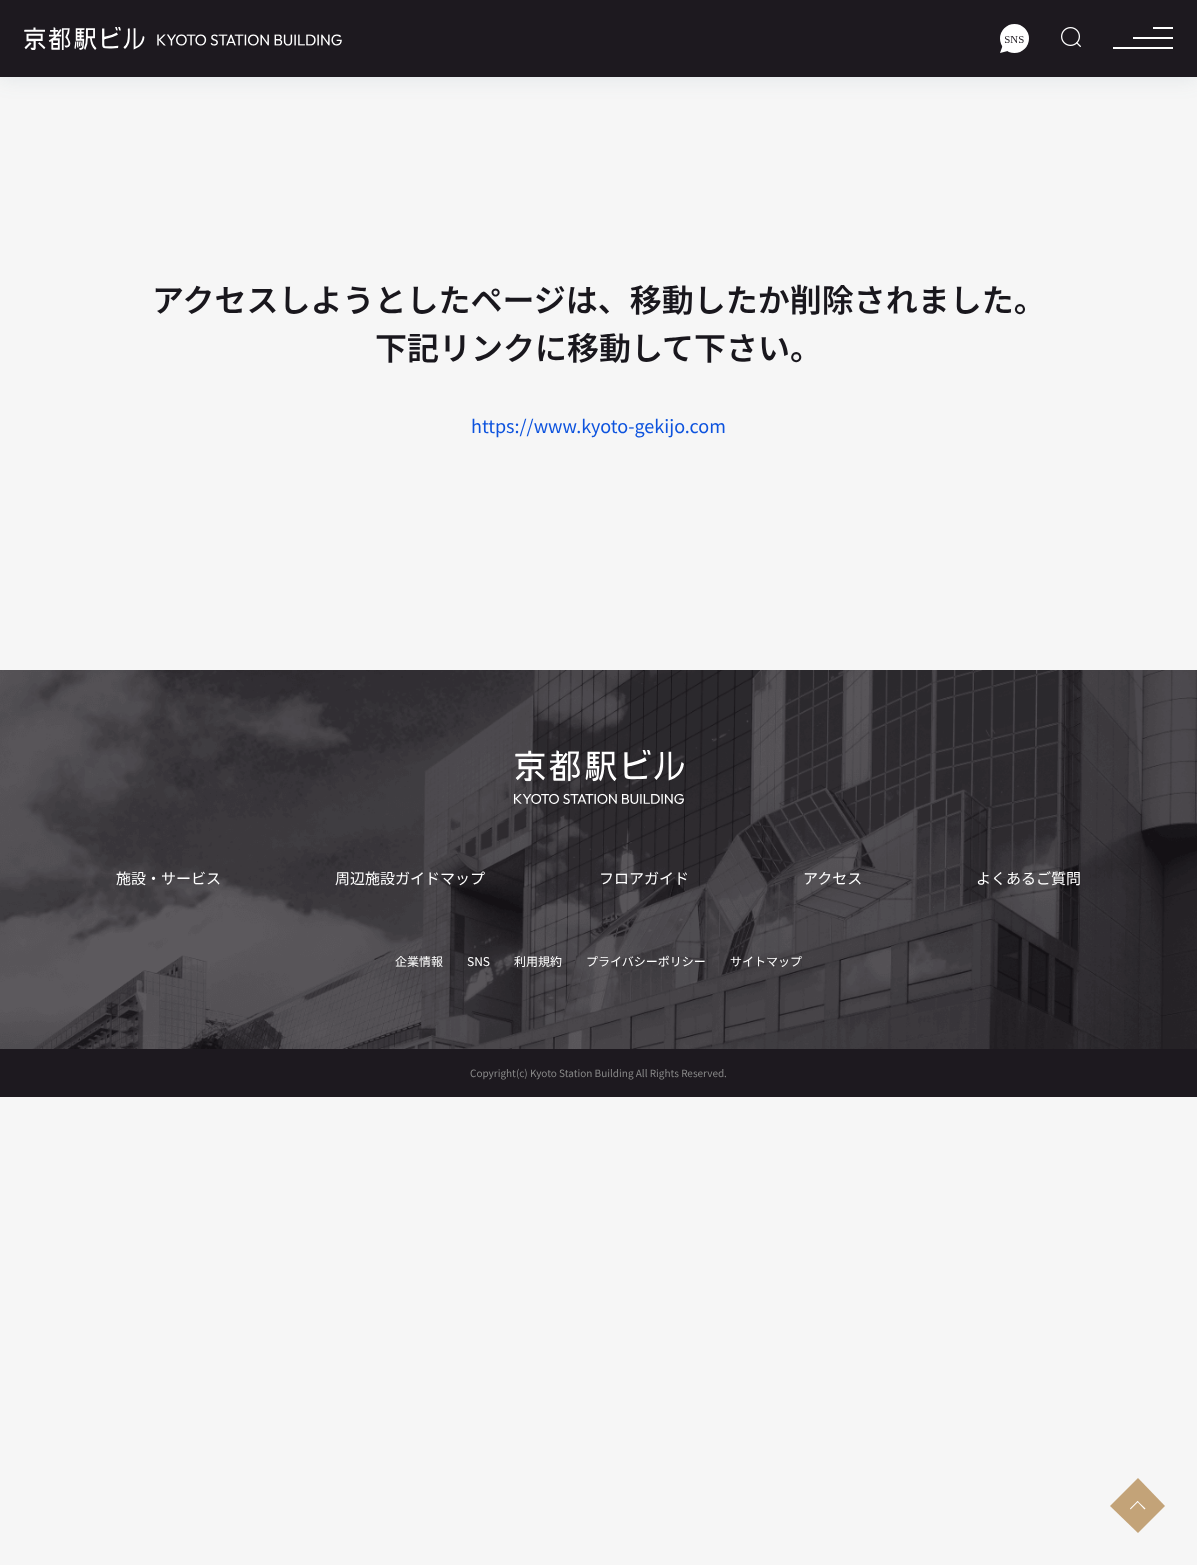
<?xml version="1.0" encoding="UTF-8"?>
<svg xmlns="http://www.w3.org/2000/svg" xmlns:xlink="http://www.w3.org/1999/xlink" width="1197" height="1565">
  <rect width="100%" height="100%" fill="#f6f6f6" />
  <rect y="3" width="1197" height="77" fill="#406980" fill-opacity="0.1" filter="blur(10px)" />
  <rect width="1197" height="77" fill="#1d191f" />
  <image x="24" y="27" width="318" height="23" xlink:href="image1.png" />
  <image x="1000" y="24" width="29" height="29" xlink:href="image2.png" />
  <image x="1061" y="27" width="20" height="20" xlink:href="image3.png" />
  <rect x="1153" y="27" width="20" height="2" fill="#ffffff" />
  <rect x="1133" y="37" width="40" height="2" fill="#ffffff" />
  <rect x="1113" y="47" width="60" height="2" fill="#ffffff" />
  <rect y="1049" width="1197" height="48" fill="#1d191f" />
  <image x="0" y="670" width="1197" height="379" xlink:href="image4.png" />
  <image x="514" y="750" width="170" height="54" xlink:href="image5.png" />
  <path d="M 1138 1478 l 27 28 l -27 27 l -28 -27 z" fill="#c3a378" />
  <path d="M 1137.5 1501 l 8 7.5 l -1 1 l -7.5 -8 z" fill="#ffffff" />
  <path d="M 1137.5 1501 l 1 0.5 l -8 8 l -0.5 -1 z" fill="#ffffff" />
  <text x="152" y="312" style="font-family: Noto Sans JP; font-size: 32px; font-weight: 600; fill: #19171d">アクセスしようとしたページは、移動したか削除されました。</text>
  <text x="375" y="360" style="font-family: Noto Sans JP; font-size: 32px; font-weight: 600; fill: #19171d">下記リンクに移動して下さい。</text>
  <text x="471" y="433" style="font-family: Noto Sans JP; font-size: 18px; fill: #0d53de">https://www.kyoto-gekijo.com</text>
  <text x="116" y="884" style="font-family: Noto Sans JP; font-size: 15px; fill: #ffffff">施設・サービス</text>
  <text x="335" y="884" style="font-family: Noto Sans JP; font-size: 15px; fill: #ffffff">周辺施設ガイドマップ</text>
  <text x="599" y="884" style="font-family: Noto Sans JP; font-size: 15px; fill: #ffffff">フロアガイド</text>
  <text x="803" y="884" style="font-family: Noto Sans JP; font-size: 15px; fill: #ffffff">アクセス</text>
  <text x="976" y="884" style="font-family: Noto Sans JP; font-size: 15px; fill: #ffffff">よくあるご質問</text>
  <text x="395" y="966" style="font-family: Noto Sans JP; font-size: 12px; fill: #ffffff">企業情報</text>
  <text x="467" y="966" style="font-family: Noto Sans JP; font-size: 12px; fill: #ffffff">SNS</text>
  <text x="514" y="966" style="font-family: Noto Sans JP; font-size: 12px; fill: #ffffff">利用規約</text>
  <text x="586" y="966" style="font-family: Noto Sans JP; font-size: 12px; fill: #ffffff">プライバシーポリシー</text>
  <text x="730" y="966" style="font-family: Noto Sans JP; font-size: 12px; fill: #ffffff">サイトマップ</text>
  <text x="470" y="1077" style="font-family: Noto Sans JP; font-size: 10px; fill: #888888">Copyright(c) Kyoto Station Building All Rights Reserved.</text>
</svg>
